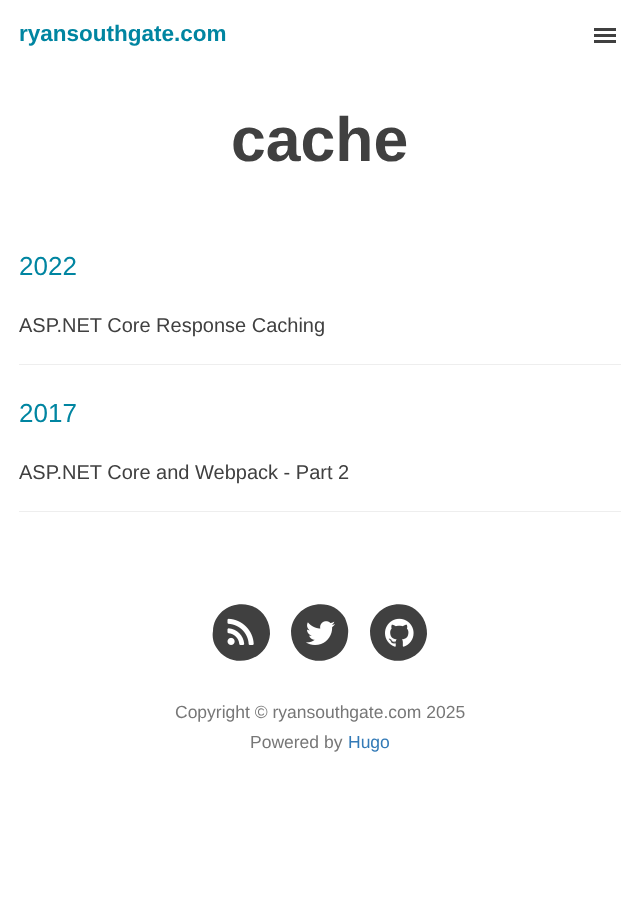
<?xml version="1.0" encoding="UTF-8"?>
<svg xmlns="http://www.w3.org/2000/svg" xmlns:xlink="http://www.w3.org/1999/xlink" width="640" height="921">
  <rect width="100%" height="100%" fill="#ffffff" />
  <rect x="594" y="28" width="22" height="3" fill="#404040" />
  <rect x="594" y="34" width="22" height="3" fill="#404040" />
  <rect x="594" y="40" width="22" height="3" fill="#404040" />
  <rect x="19" y="364" width="602" height="1" fill="#eeeeee" />
  <rect x="19" y="511" width="602" height="1" fill="#eeeeee" />
  <path d="M 266 618 c 3 5 4 11 4 16 c -2 28 -40 37 -54 13 c -3 -5 -4 -11 -3 -16 c 1 -28 39 -37 53 -13 z" fill="#404040" />
  <image x="227" y="618" width="27" height="27" xlink:href="image1.png" />
  <path d="M 345 618 c 2 5 4 11 3 16 c -1 28 -39 37 -53 13 c -3 -5 -4 -11 -4 -16 c 2 -28 40 -37 54 -13 z" fill="#404040" />
  <image x="306" y="621" width="29" height="24" xlink:href="image2.png" />
  <path d="M 423 618 c 3 5 4 11 4 16 c -2 28 -39 37 -53 13 c -3 -5 -4 -11 -4 -16 c 2 -28 39 -37 53 -13 z" fill="#404040" />
  <image x="385" y="618" width="29" height="29" xlink:href="image3.png" />
  <text x="19" y="41" style="font-family: Liberation Sans; font-size: 22.5px; font-weight: bold; fill: #0085a1">ryansouthgate.com</text>
  <text x="231" y="161" style="font-family: Liberation Sans; font-size: 62.5px; font-weight: bold; fill: #404040">cache</text>
  <text x="19" y="275" style="font-family: Liberation Sans; font-size: 26px; fill: #0085a1">2022</text>
  <text x="19" y="332" style="font-family: Liberation Sans; font-size: 20px; fill: #404040">ASP.NET Core Response Caching</text>
  <text x="19" y="422" style="font-family: Liberation Sans; font-size: 26px; fill: #0085a1">2017</text>
  <text x="19" y="479" style="font-family: Liberation Sans; font-size: 20px; fill: #404040">ASP.NET Core and Webpack - Part 2</text>
  <text x="175" y="718" style="font-family: Liberation Sans; font-size: 17.5px; fill: #777777">Copyright © ryansouthgate.com 2025</text>
  <text x="250" y="748" style="font-family: Liberation Sans; font-size: 17.5px; fill: #777777">Powered by</text>
  <text x="348" y="748" style="font-family: Liberation Sans; font-size: 17.5px; fill: #337ab7">Hugo</text>
</svg>
